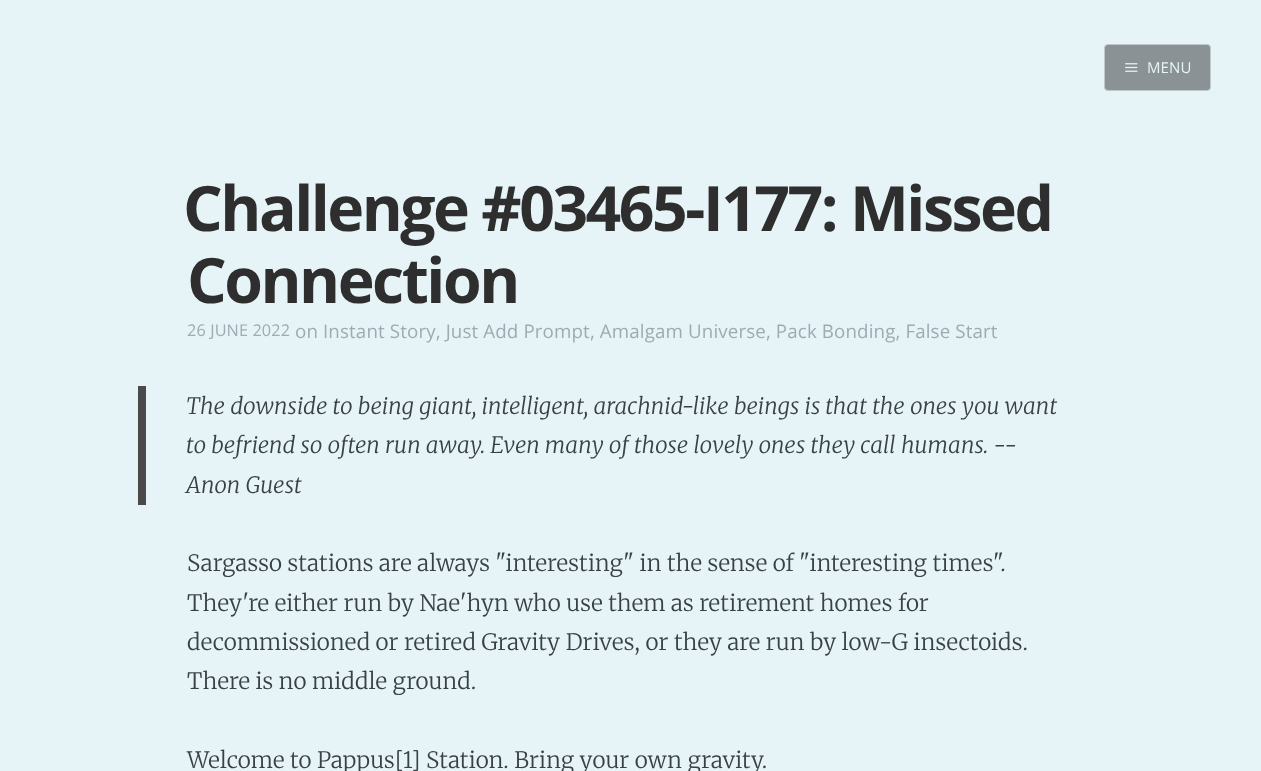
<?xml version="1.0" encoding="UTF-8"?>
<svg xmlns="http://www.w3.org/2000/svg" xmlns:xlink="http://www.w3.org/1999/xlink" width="1261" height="771">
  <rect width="100%" height="100%" fill="#e6f4f8" />
  <rect x="1104.5" y="44.5" width="106" height="46" rx="3.5" fill="#8a9295" stroke="#bfc8cd" />
  <image x="1125" y="63" width="13" height="9" xlink:href="image1.png" />
  <rect x="138" y="386" width="8" height="119" fill="#4a4a4a" />
  <text x="1147" y="73" style="font-family: Open Sans; font-size: 15px; letter-spacing: 0.12px; fill: #e6f4f8">MENU</text>
  <text x="183" y="231" style="font-family: Open Sans; font-size: 62.5px; font-weight: bold; letter-spacing: -2.5px; fill: #2e2e2e">Challenge #03465-I177: Missed</text>
  <text x="187" y="303" style="font-family: Open Sans; font-size: 62.5px; font-weight: bold; letter-spacing: -2.5px; fill: #2e2e2e">Connection</text>
  <text x="187" y="336" style="font-family: Open Sans; font-size: 16.25px; letter-spacing: 0.12px; fill: #9eabb3">26 JUNE 2022</text>
  <text x="295" y="338" style="font-family: Open Sans; font-size: 18.75px; letter-spacing: 0.12px; fill: #9eabb3">on Instant Story, Just Add Prompt, Amalgam Universe, Pack Bonding, False Start</text>
  <text x="186" y="414" style="font-family: Merriweather; font-size: 22.5px; font-weight: 300; font-style: italic; letter-spacing: 0.12px; fill: #3a4145">The downside to being giant, intelligent, arachnid-like beings is that the ones you want</text>
  <text x="186" y="453" style="font-family: Merriweather; font-size: 22.5px; font-weight: 300; font-style: italic; letter-spacing: 0.12px; fill: #3a4145">to befriend so often run away. Even many of those lovely ones they call humans. --</text>
  <text x="186" y="493" style="font-family: Merriweather; font-size: 22.5px; font-weight: 300; font-style: italic; letter-spacing: 0.12px; fill: #3a4145">Anon Guest</text>
  <text x="187" y="571" style="font-family: Merriweather; font-size: 22.5px; font-weight: 300; letter-spacing: 0.12px; fill: #3a4145">Sargasso stations are always "interesting" in the sense of "interesting times".</text>
  <text x="187" y="611" style="font-family: Merriweather; font-size: 22.5px; font-weight: 300; letter-spacing: 0.12px; fill: #3a4145">They're either run by Nae'hyn who use them as retirement homes for</text>
  <text x="187" y="650" style="font-family: Merriweather; font-size: 22.5px; font-weight: 300; letter-spacing: 0.12px; fill: #3a4145">decommissioned or retired Gravity Drives, or they are run by low-G insectoids.</text>
  <text x="187" y="689" style="font-family: Merriweather; font-size: 22.5px; font-weight: 300; letter-spacing: 0.12px; fill: #3a4145">There is no middle ground.</text>
  <text x="187" y="768" style="font-family: Merriweather; font-size: 22.5px; font-weight: 300; letter-spacing: 0.12px; fill: #3a4145">Welcome to Pappus[1] Station. Bring your own gravity.</text>
</svg>
